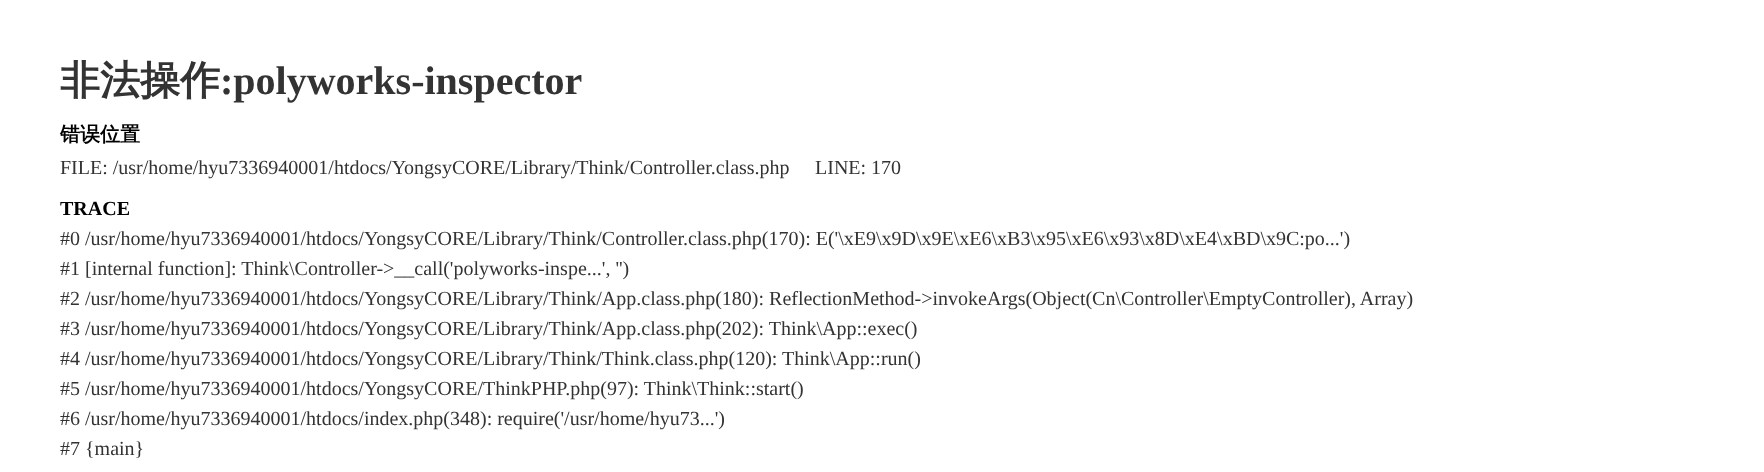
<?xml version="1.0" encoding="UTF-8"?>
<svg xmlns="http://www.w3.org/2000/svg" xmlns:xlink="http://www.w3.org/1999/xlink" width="1764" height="472">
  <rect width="100%" height="100%" fill="#ffffff" />
  <text x="60" y="94" style="font-family: WenQuanYi Zen Hei; font-size: 40px; font-weight: bold; fill: #333333">非法操作</text>
  <text x="220" y="94" style="font-family: Liberation Serif; font-size: 40px; font-weight: bold; fill: #333333">:polyworks-inspector</text>
  <text x="60" y="141" style="font-family: WenQuanYi Zen Hei; font-size: 20px; font-weight: bold; fill: #000000">错误位置</text>
  <text x="60" y="174" style="font-family: Liberation Serif; font-size: 20px; fill: #333333">FILE: /usr/home/hyu7336940001/htdocs/YongsyCORE/Library/Think/Controller.class.php</text>
  <text x="815" y="174" style="font-family: Liberation Serif; font-size: 20px; fill: #333333">LINE: 170</text>
  <text x="60" y="215" style="font-family: Liberation Serif; font-size: 20px; font-weight: bold; fill: #000000">TRACE</text>
  <text x="60" y="245" style="font-family: Liberation Serif; font-size: 20px; fill: #333333">#0 /usr/home/hyu7336940001/htdocs/YongsyCORE/Library/Think/Controller.class.php(170): E('\xE9\x9D\x9E\xE6\xB3\x95\xE6\x93\x8D\xE4\xBD\x9C:po...')</text>
  <text x="60" y="275" style="font-family: Liberation Serif; font-size: 20px; fill: #333333">#1 [internal function]: Think\Controller-&gt;__call('polyworks-inspe...', '')</text>
  <text x="60" y="305" style="font-family: Liberation Serif; font-size: 20px; fill: #333333">#2 /usr/home/hyu7336940001/htdocs/YongsyCORE/Library/Think/App.class.php(180): ReflectionMethod-&gt;invokeArgs(Object(Cn\Controller\EmptyController), Array)</text>
  <text x="60" y="335" style="font-family: Liberation Serif; font-size: 20px; fill: #333333">#3 /usr/home/hyu7336940001/htdocs/YongsyCORE/Library/Think/App.class.php(202): Think\App::exec()</text>
  <text x="60" y="365" style="font-family: Liberation Serif; font-size: 20px; fill: #333333">#4 /usr/home/hyu7336940001/htdocs/YongsyCORE/Library/Think/Think.class.php(120): Think\App::run()</text>
  <text x="60" y="395" style="font-family: Liberation Serif; font-size: 20px; fill: #333333">#5 /usr/home/hyu7336940001/htdocs/YongsyCORE/ThinkPHP.php(97): Think\Think::start()</text>
  <text x="60" y="425" style="font-family: Liberation Serif; font-size: 20px; fill: #333333">#6 /usr/home/hyu7336940001/htdocs/index.php(348): require('/usr/home/hyu73...')</text>
  <text x="60" y="455" style="font-family: Liberation Serif; font-size: 20px; fill: #333333">#7 {main}</text>
</svg>
